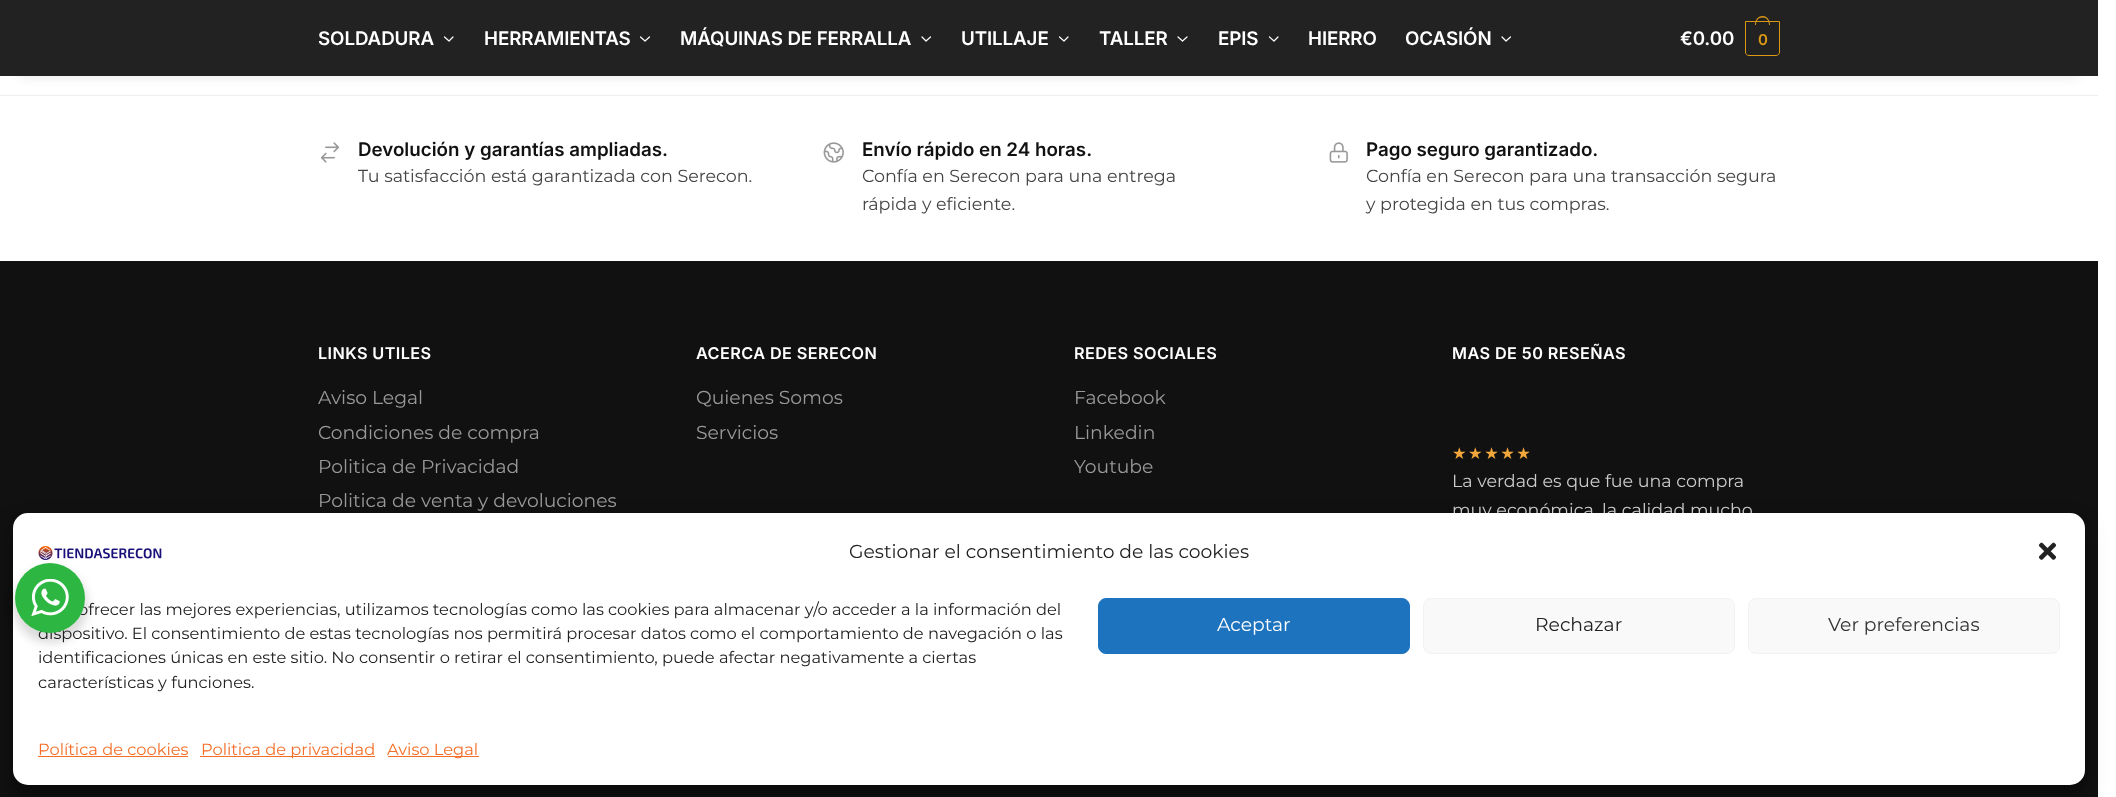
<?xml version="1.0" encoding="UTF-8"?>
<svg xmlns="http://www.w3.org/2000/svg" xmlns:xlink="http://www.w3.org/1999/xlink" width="2116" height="797">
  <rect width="100%" height="100%" fill="#ffffff" />
  <rect x="19" y="38" width="2060" height="38" fill="#000000" fill-opacity="0.1" filter="blur(6px)" />
  <rect width="2098" height="76" fill="#222222" />
  <path d="M 453 37 l -4 4 l -4.5 -4" fill="none" stroke="#ffffff" stroke-width="1.2" stroke-linecap="round" stroke-linejoin="round" />
  <path d="M 649.5 37 l -4.5 4 l -4.5 -4" fill="none" stroke="#ffffff" stroke-width="1.2" stroke-linecap="round" stroke-linejoin="round" />
  <path d="M 930.5 37 l -4.5 4 l -4 -4" fill="none" stroke="#ffffff" stroke-width="1.2" stroke-linecap="round" stroke-linejoin="round" />
  <path d="M 1068 37 l -4 4 l -4.5 -4" fill="none" stroke="#ffffff" stroke-width="1.2" stroke-linecap="round" stroke-linejoin="round" />
  <path d="M 1187 37 l -4.5 4 l -4.5 -4" fill="none" stroke="#ffffff" stroke-width="1.2" stroke-linecap="round" stroke-linejoin="round" />
  <path d="M 1278 37 l -4 4 l -4.5 -4" fill="none" stroke="#ffffff" stroke-width="1.2" stroke-linecap="round" stroke-linejoin="round" />
  <path d="M 1510.5 37 l -4.5 4 l -4 -4" fill="none" stroke="#ffffff" stroke-width="1.2" stroke-linecap="round" stroke-linejoin="round" />
  <path d="M 1745.5 21.5 h 34 v 30.5 c 0 2 -1.5 3.5 -3.5 3.5 h -27 c -2 0 -3.5 -1.5 -3.5 -3.5 z" fill="none" stroke="#dc9814" />
  <path d="M 1762.5 16 c 5 0 7.5 4.5 7.5 9 h -15 c 0 -4.5 2.5 -9 7.5 -9 z m 0 1.5 c 4.5 0 6.5 3.5 6.5 7.5 h -13 c 0 -4 2 -7.5 6.5 -7.5 z" fill="#dc9814" fill-rule="evenodd" />
  <rect y="95" width="2098" height="1" fill="#eeeeee" />
  <image x="320" y="142" width="20" height="21" xlink:href="image1.png" />
  <image x="823" y="142" width="21" height="21" xlink:href="image2.png" />
  <image x="1329" y="142" width="19" height="21" xlink:href="image3.png" />
  <rect y="261" width="2098" height="536" fill="#111111" />
  <rect x="13" y="520" width="2072" height="273" rx="15" fill="#000000" fill-opacity="0.23" filter="blur(4px)" />
  <rect x="13" y="525" width="2072" height="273" rx="15" fill="#000000" fill-opacity="0.19" filter="blur(12.5px)" />
  <text x="318" y="45" style="font-family: Inter; font-size: 18.75px; font-weight: 600; letter-spacing: -0.1px; fill: #ffffff">SOLDADURA</text>
  <text x="484" y="45" style="font-family: Inter; font-size: 18.75px; font-weight: 600; letter-spacing: -0.1px; fill: #ffffff">HERRAMIENTAS</text>
  <text x="680" y="45" style="font-family: Inter; font-size: 18.75px; font-weight: 600; letter-spacing: -0.1px; fill: #ffffff">MÁQUINAS DE FERRALLA</text>
  <text x="961" y="45" style="font-family: Inter; font-size: 18.75px; font-weight: 600; letter-spacing: -0.1px; fill: #ffffff">UTILLAJE</text>
  <text x="1099" y="45" style="font-family: Inter; font-size: 18.75px; font-weight: 600; letter-spacing: -0.1px; fill: #ffffff">TALLER</text>
  <text x="1218" y="45" style="font-family: Inter; font-size: 18.75px; font-weight: 600; letter-spacing: -0.1px; fill: #ffffff">EPIS</text>
  <text x="1308" y="45" style="font-family: Inter; font-size: 18.75px; font-weight: 600; letter-spacing: -0.1px; fill: #ffffff">HIERRO</text>
  <text x="1405" y="45" style="font-family: Inter; font-size: 18.75px; font-weight: 600; letter-spacing: -0.1px; fill: #ffffff">OCASIÓN</text>
  <text x="1680" y="45" style="font-family: Inter; font-size: 18.75px; font-weight: 600; letter-spacing: -0.1px; fill: #ffffff">€0.00</text>
  <text x="1758" y="45" style="font-family: Inter; font-size: 15px; font-weight: 600; letter-spacing: -1px; fill: #dc9814">0</text>
  <text x="358" y="156" style="font-family: Inter; font-size: 18.75px; font-weight: 600; fill: #111111">Devolución y garantías ampliadas.</text>
  <text x="358" y="182" style="font-family: Montserrat; font-size: 17.5px; fill: #444444">Tu satisfacción está garantizada con Serecon.</text>
  <text x="862" y="156" style="font-family: Inter; font-size: 18.75px; font-weight: 600; fill: #111111">Envío rápido en 24 horas.</text>
  <text x="862" y="182" style="font-family: Montserrat; font-size: 17.5px; fill: #444444">Confía en Serecon para una entrega</text>
  <text x="862" y="210" style="font-family: Montserrat; font-size: 17.5px; fill: #444444">rápida y eficiente.</text>
  <text x="1366" y="156" style="font-family: Inter; font-size: 18.75px; font-weight: 600; fill: #111111">Pago seguro garantizado.</text>
  <text x="1366" y="182" style="font-family: Montserrat; font-size: 17.5px; fill: #444444">Confía en Serecon para una transacción segura</text>
  <text x="1366" y="210" style="font-family: Montserrat; font-size: 17.5px; fill: #444444">y protegida en tus compras.</text>
  <text x="318" y="359" style="font-family: Inter; font-size: 16.25px; font-weight: 600; letter-spacing: 0.4px; fill: #ffffff">LINKS UTILES</text>
  <text x="318" y="404" style="font-family: Montserrat; font-size: 18.75px; fill: #999999">Aviso Legal</text>
  <text x="318" y="439" style="font-family: Montserrat; font-size: 18.75px; fill: #999999">Condiciones de compra</text>
  <text x="318" y="473" style="font-family: Montserrat; font-size: 18.75px; fill: #999999">Politica de Privacidad</text>
  <text x="318" y="507" style="font-family: Montserrat; font-size: 18.75px; fill: #999999">Politica de venta y devoluciones</text>
  <text x="696" y="359" style="font-family: Inter; font-size: 16.25px; font-weight: 600; letter-spacing: 0.4px; fill: #ffffff">ACERCA DE SERECON</text>
  <text x="696" y="404" style="font-family: Montserrat; font-size: 18.75px; fill: #999999">Quienes Somos</text>
  <text x="696" y="439" style="font-family: Montserrat; font-size: 18.75px; fill: #999999">Servicios</text>
  <text x="1074" y="359" style="font-family: Inter; font-size: 16.25px; font-weight: 600; letter-spacing: 0.4px; fill: #ffffff">REDES SOCIALES</text>
  <text x="1074" y="404" style="font-family: Montserrat; font-size: 18.75px; fill: #999999">Facebook</text>
  <text x="1074" y="439" style="font-family: Montserrat; font-size: 18.75px; fill: #999999">Linkedin</text>
  <text x="1074" y="473" style="font-family: Montserrat; font-size: 18.75px; fill: #999999">Youtube</text>
  <text x="1452" y="359" style="font-family: Inter; font-size: 16.25px; font-weight: 600; letter-spacing: 0.4px; fill: #ffffff">MAS DE 50 RESEÑAS</text>
  <text x="1452" y="459" style="font-family: DejaVu Sans; font-size: 16.25px; letter-spacing: 1.5px; fill: #f3a63b">★★★★★</text>
  <text x="1452" y="487" style="font-family: Montserrat; font-size: 17.5px; fill: #cccccc">La verdad es que fue una compra</text>
  <text x="1452" y="516" style="font-family: Montserrat; font-size: 17.5px; fill: #cccccc">muy económica, la calidad mucho</text>
  <rect x="13" y="513" width="2072" height="272" rx="15" fill="#ffffff" />
  <image x="38" y="546" width="124" height="14" xlink:href="image4.png" />
  <text x="849" y="558" style="font-family: Montserrat; font-size: 18.75px; fill: #222222">Gestionar el consentimiento de las cookies</text>
  <image x="2038" y="542" width="19" height="18" xlink:href="image5.png" />
  <text x="78" y="615" style="font-family: Montserrat; font-size: 16.25px; fill: #222222">ofrecer las mejores experiencias, utilizamos tecnologías como las cookies para almacenar y/o acceder a la información del</text>
  <text x="38" y="639" style="font-family: Montserrat; font-size: 16.25px; fill: #222222">dispositivo. El consentimiento de estas tecnologías nos permitirá procesar datos como el comportamiento de navegación o las</text>
  <text x="38" y="663" style="font-family: Montserrat; font-size: 16.25px; fill: #222222">identificaciones únicas en este sitio. No consentir o retirar el consentimiento, puede afectar negativamente a ciertas</text>
  <text x="38" y="688" style="font-family: Montserrat; font-size: 16.25px; fill: #222222">características y funciones.</text>
  <rect x="1098.5" y="598.5" width="311" height="55" rx="7.5" fill="#1e73be" stroke="#1e73be" />
  <text x="1217" y="631" style="font-family: Montserrat; font-size: 18.75px; fill: #ffffff">Aceptar</text>
  <rect x="1423.5" y="598.5" width="311" height="55" rx="7.5" fill="#f9f9f9" stroke="#f2f2f2" />
  <text x="1535" y="631" style="font-family: Montserrat; font-size: 18.75px; fill: #222222">Rechazar</text>
  <rect x="1748.5" y="598.5" width="311" height="55" rx="7.5" fill="#f9f9f9" stroke="#f2f2f2" />
  <text x="1828" y="631" style="font-family: Montserrat; font-size: 18.75px; fill: #333333">Ver preferencias</text>
  <text x="38" y="755" style="font-family: Montserrat; font-size: 16.25px; fill: #f56e28">Política de cookies</text>
  <rect x="38" y="756" width="150" height="1" fill="#f56e28" />
  <rect x="200" y="756" width="175" height="1" fill="#f56e28" />
  <text x="201" y="755" style="font-family: Montserrat; font-size: 16.25px; fill: #f56e28">Politica de privacidad</text>
  <rect x="388" y="756" width="91" height="1" fill="#f56e28" />
  <text x="387" y="755" style="font-family: Montserrat; font-size: 16.25px; fill: #f56e28">Aviso Legal</text>
  <rect x="13" y="568" width="75" height="75" rx="37.5" fill="#000000" fill-opacity="0.14" filter="blur(5px)" />
  <circle cx="50" cy="598" r="35" fill="#2db742" />
  <image x="31" y="579" width="38" height="37" xlink:href="image6.png" />
</svg>
